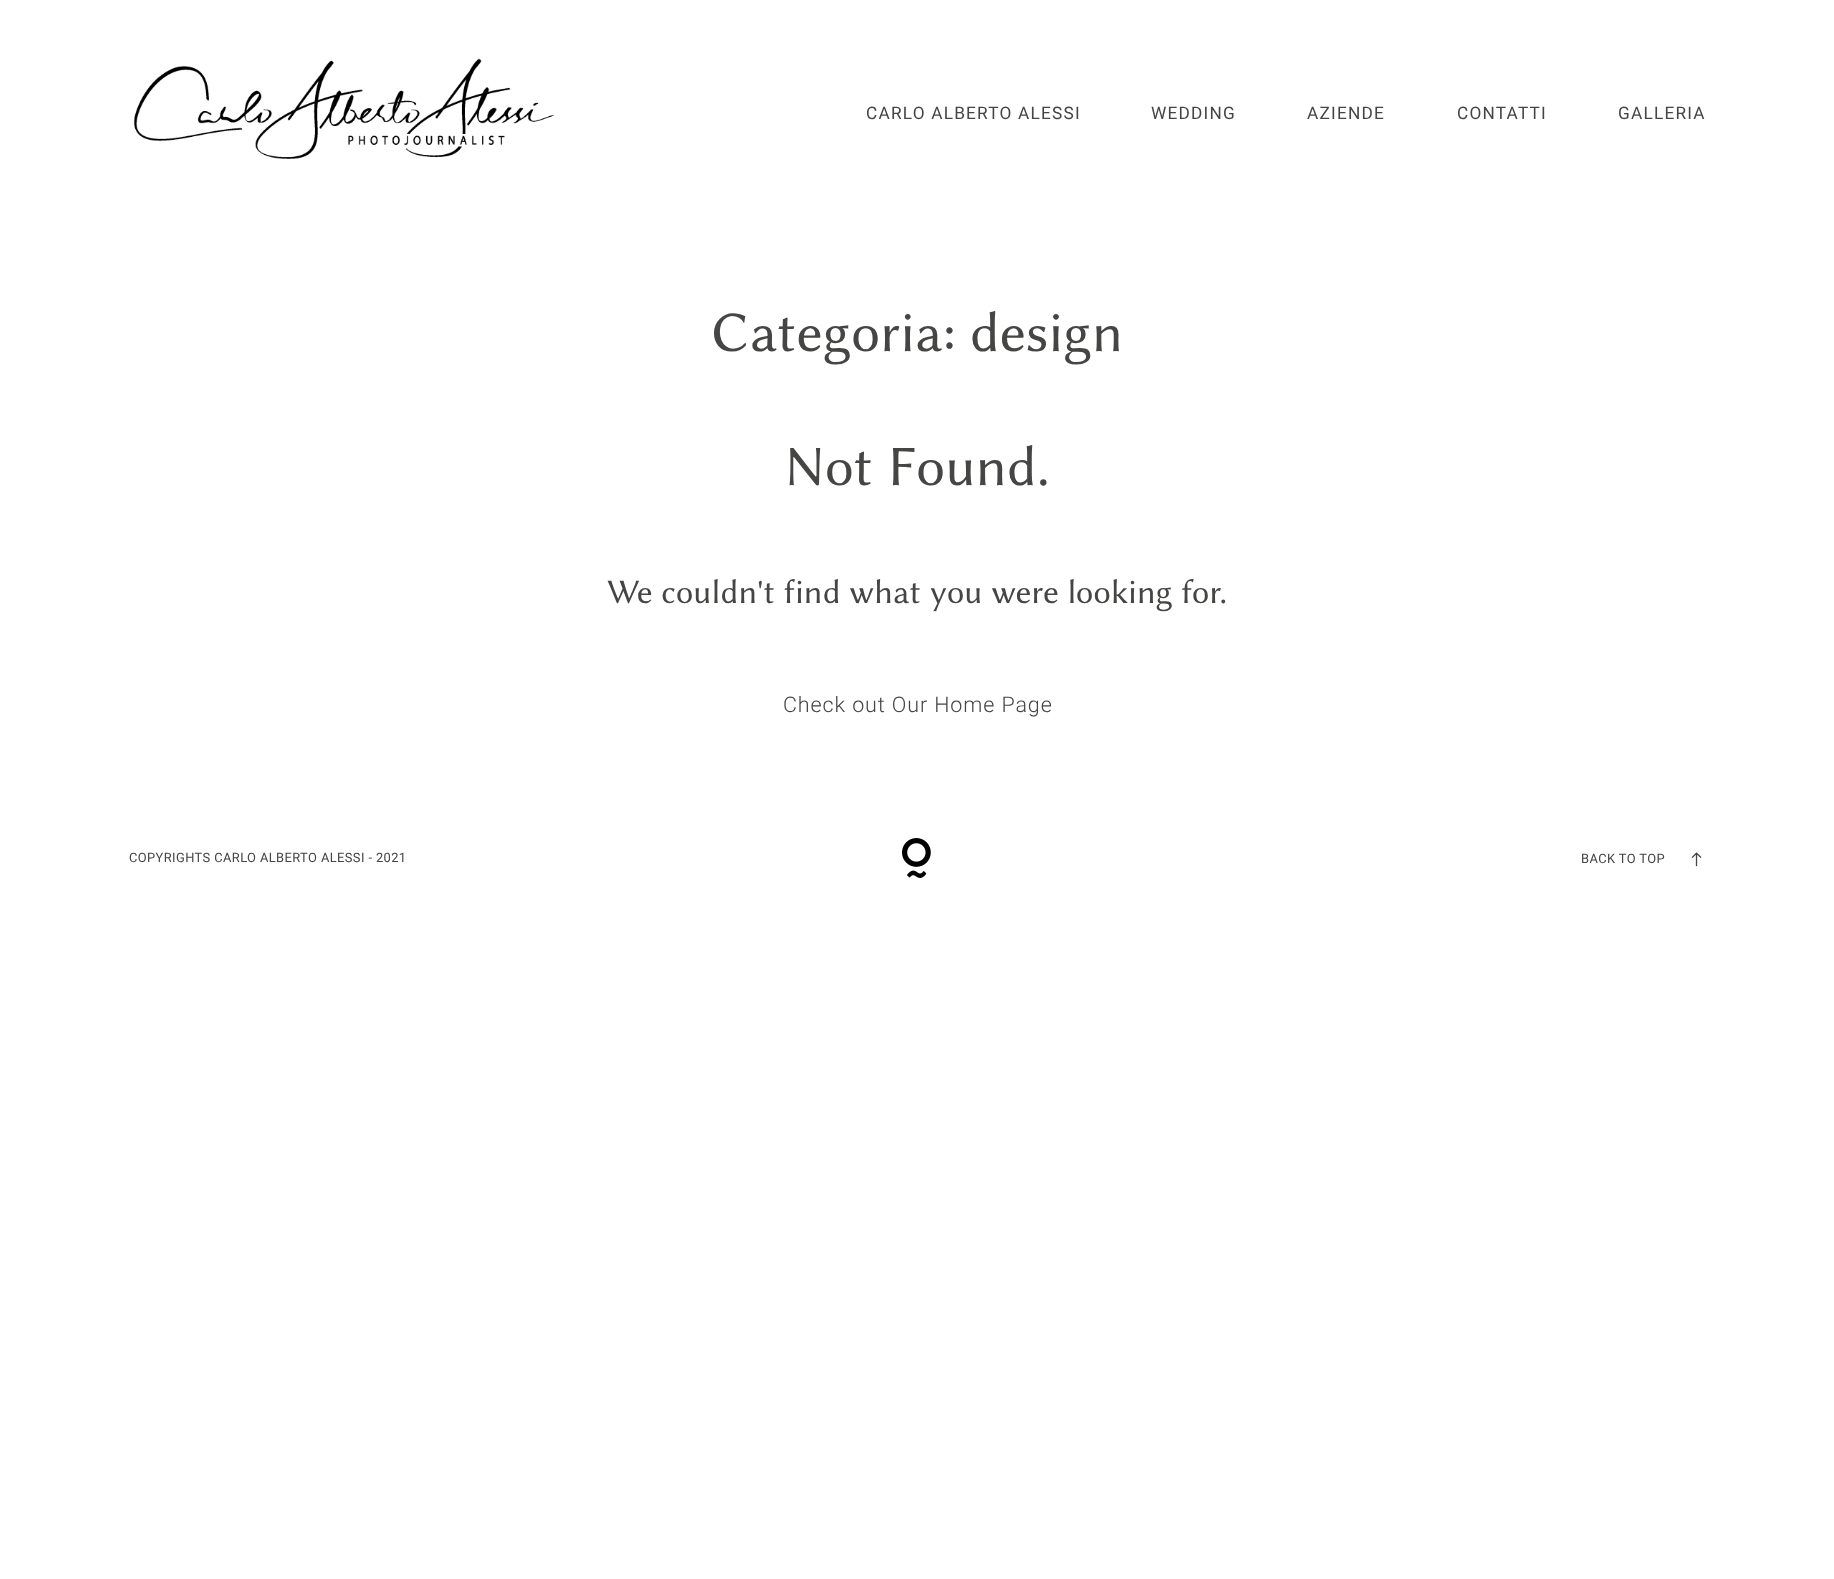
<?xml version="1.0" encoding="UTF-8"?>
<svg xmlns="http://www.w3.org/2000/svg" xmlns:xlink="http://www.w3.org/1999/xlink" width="1834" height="1579">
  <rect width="100%" height="100%" fill="#ffffff" />
  <image x="133" y="58" width="422" height="101" xlink:href="image1.png" />
  <image x="902" y="838" width="29" height="40" xlink:href="image2.png" />
  <image x="1691" y="852" width="11" height="15" xlink:href="image3.png" />
  <text x="866" y="119" style="font-family: Roboto; font-size: 17.25px; letter-spacing: 1.2px; fill: #454543">CARLO ALBERTO ALESSI</text>
  <text x="1151" y="119" style="font-family: Roboto; font-size: 17.25px; letter-spacing: 1.2px; fill: #454543">WEDDING</text>
  <text x="1307" y="119" style="font-family: Roboto; font-size: 17.25px; letter-spacing: 1.2px; fill: #454543">AZIENDE</text>
  <text x="1457" y="119" style="font-family: Roboto; font-size: 17.25px; letter-spacing: 1.2px; fill: #454543">CONTATTI</text>
  <text x="1618" y="119" style="font-family: Roboto; font-size: 17.25px; letter-spacing: 1.2px; fill: #454543">GALLERIA</text>
  <text x="711" y="351" style="font-family: Libertinus Sans; font-size: 57.25px; fill: #454543">Categoria: design</text>
  <text x="784" y="485" style="font-family: Libertinus Sans; font-size: 57.25px; fill: #454543">Not Found.</text>
  <text x="607" y="603" style="font-family: Libertinus Sans; font-size: 34.4px; fill: #454543">We couldn't find what you were looking for.</text>
  <text x="783" y="712" style="font-family: Roboto; font-size: 21.5px; font-weight: 300; letter-spacing: 0.9px; fill: #454543">Check out Our Home Page</text>
  <text x="129" y="862" style="font-family: Roboto; font-size: 12.9px; letter-spacing: 0.4px; fill: #454543">COPYRIGHTS CARLO ALBERTO ALESSI - 2021</text>
  <text x="1581" y="863" style="font-family: Roboto; font-size: 12.9px; letter-spacing: 0.4px; fill: #454543">BACK TO TOP</text>
</svg>
